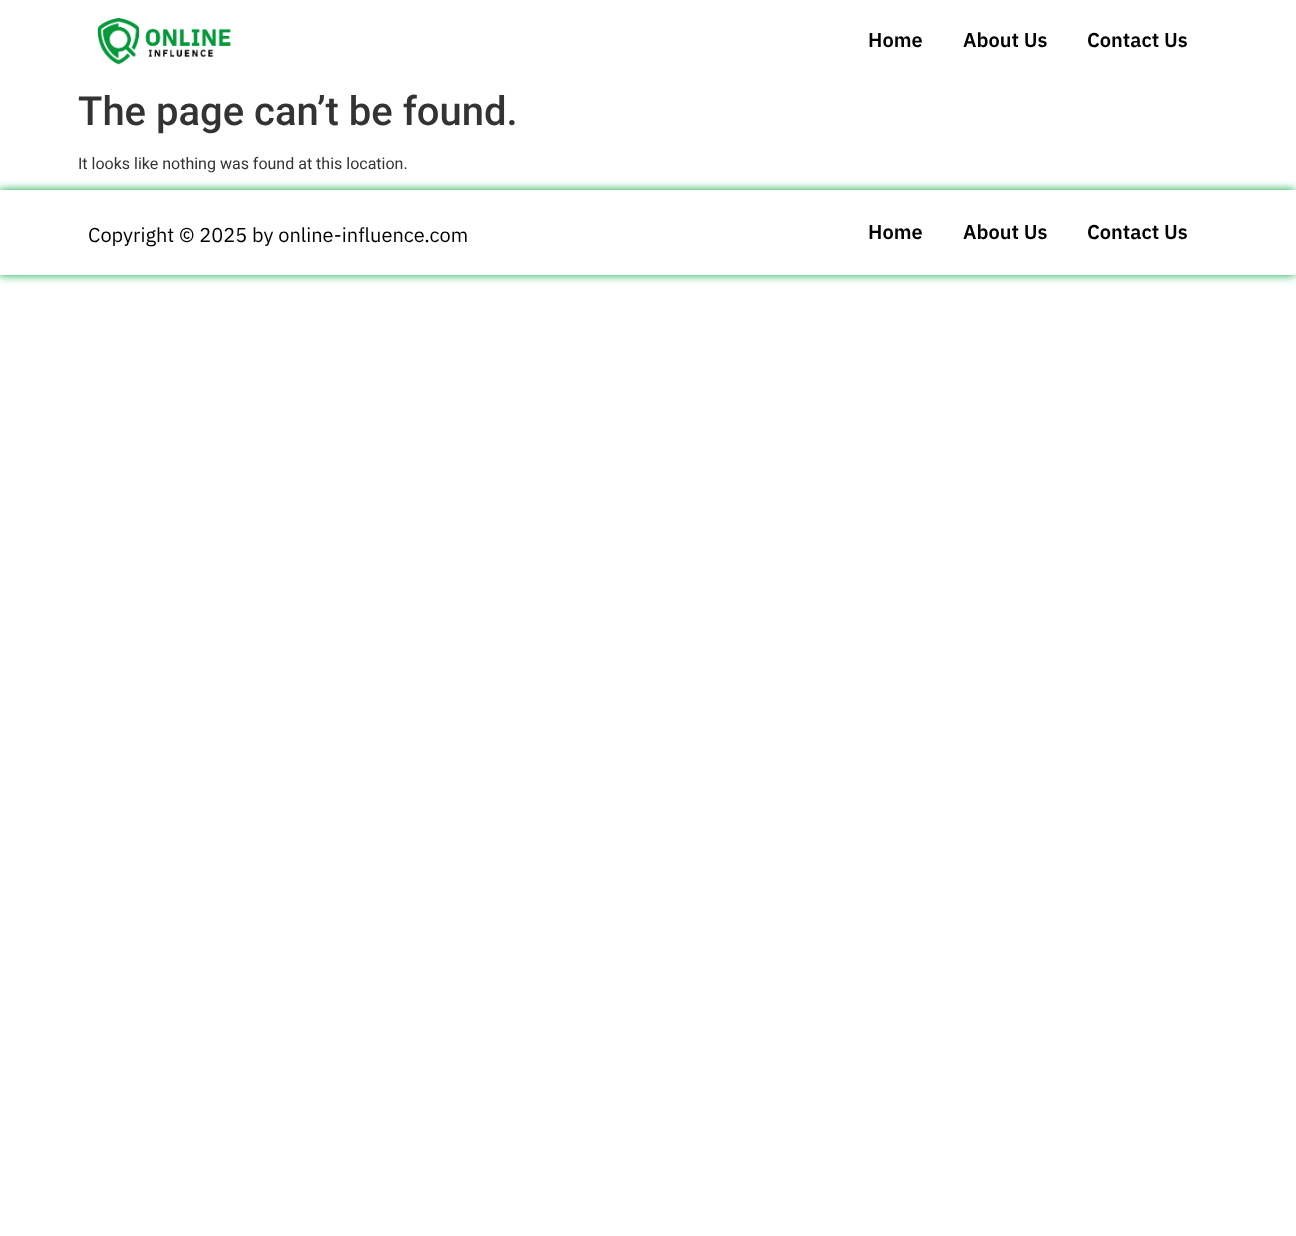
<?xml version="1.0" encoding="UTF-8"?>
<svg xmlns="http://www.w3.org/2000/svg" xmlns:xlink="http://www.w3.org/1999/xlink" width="1296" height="1236">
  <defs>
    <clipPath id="clip1"><path d="M 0 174 h 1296 v 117 h -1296 z m 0 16 h 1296 v 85 h -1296 z" clip-rule="evenodd" /></clipPath>
  </defs>
  <rect width="100%" height="100%" fill="#ffffff" />
  <image x="97" y="18" width="134" height="47" xlink:href="image1.png" />
  <g clip-path="url(#clip1)">
    <rect x="-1" y="190" width="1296" height="85" fill="#01a73d" filter="blur(5px)" />
  </g>
  <text x="868" y="47" style="font-family: IBM Plex Sans; font-size: 20px; font-weight: 600; fill: #000000">Home</text>
  <text x="963" y="47" style="font-family: IBM Plex Sans; font-size: 20px; font-weight: 600; fill: #000000">About Us</text>
  <text x="1087" y="47" style="font-family: IBM Plex Sans; font-size: 20px; font-weight: 600; fill: #000000">Contact Us</text>
  <text x="78" y="125" style="font-family: Roboto; font-size: 40px; font-weight: 500; fill: #333333">The page can’t be found.</text>
  <text x="78" y="169" style="font-family: Roboto; font-size: 16px; fill: #333333">It looks like nothing was found at this location.</text>
  <text x="88" y="242" style="font-family: IBM Plex Sans; font-size: 20px; fill: #000000">Copyright © 2025 by online-influence.com</text>
  <text x="868" y="239" style="font-family: IBM Plex Sans; font-size: 20px; font-weight: 600; fill: #000000">Home</text>
  <text x="963" y="239" style="font-family: IBM Plex Sans; font-size: 20px; font-weight: 600; fill: #000000">About Us</text>
  <text x="1087" y="239" style="font-family: IBM Plex Sans; font-size: 20px; font-weight: 600; fill: #000000">Contact Us</text>
</svg>
